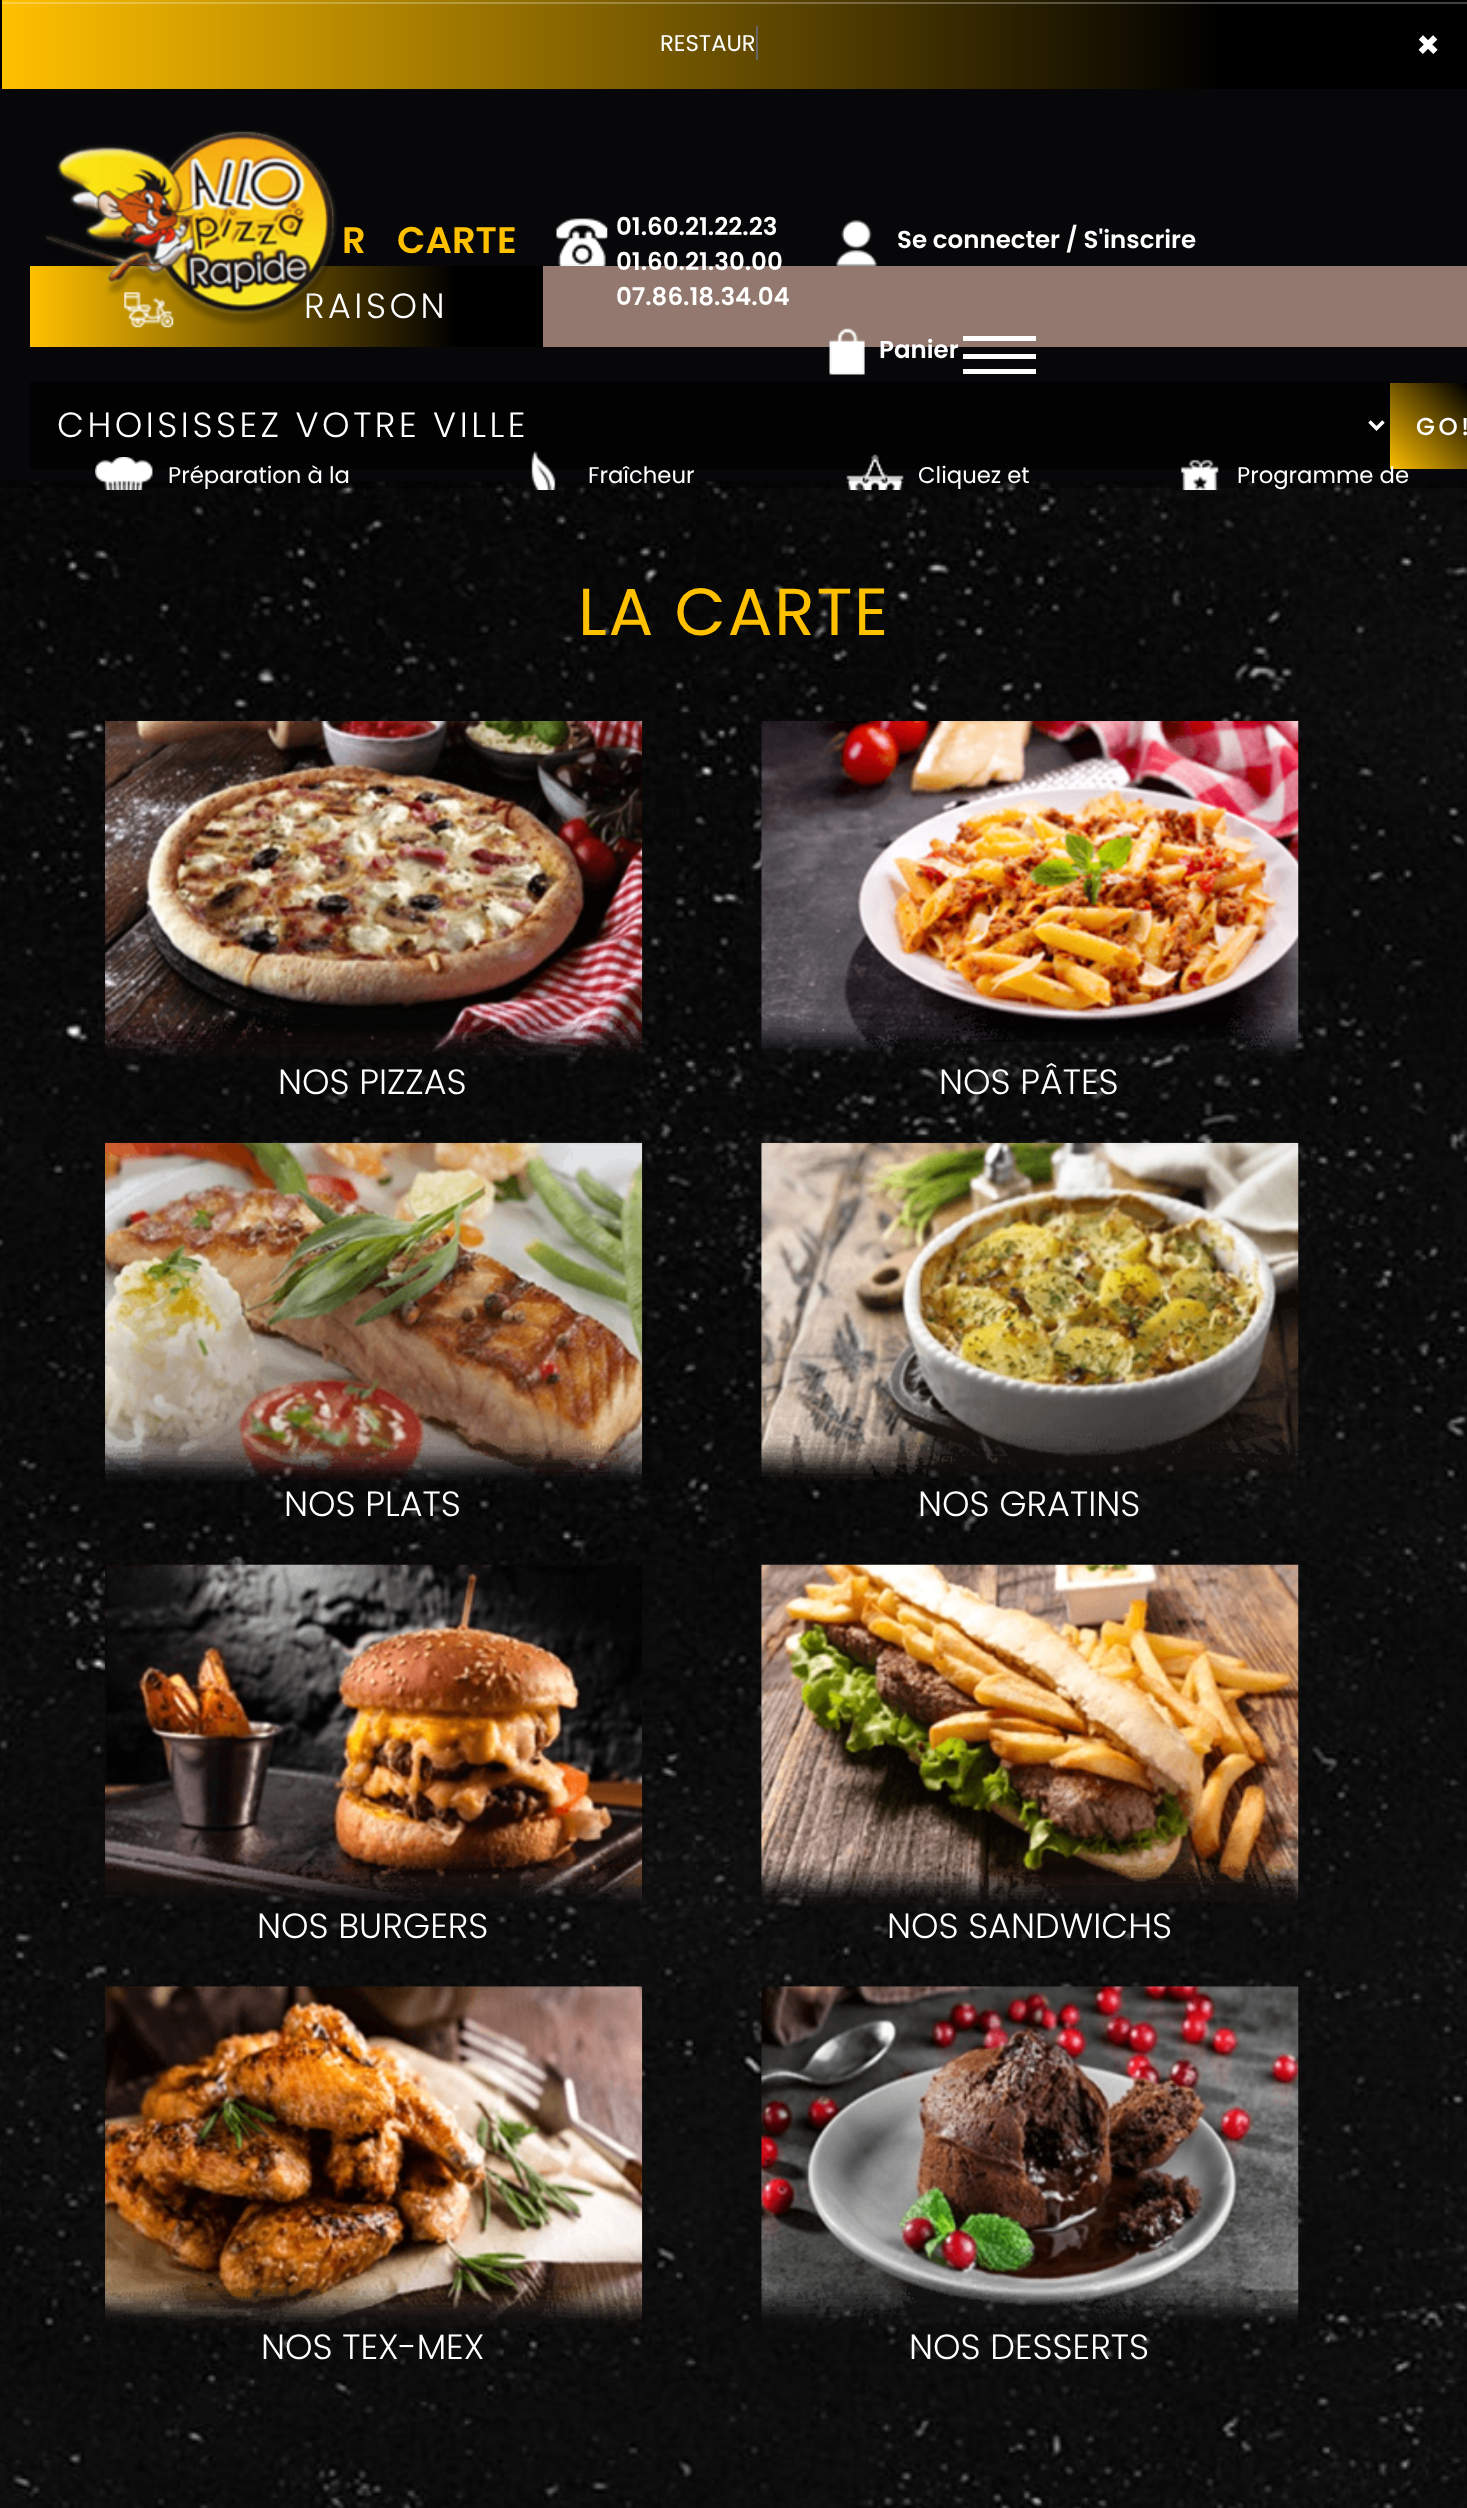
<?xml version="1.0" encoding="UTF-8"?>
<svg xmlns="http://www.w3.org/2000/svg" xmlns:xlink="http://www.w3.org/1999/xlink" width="1467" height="2508">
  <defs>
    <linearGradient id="g1" gradientUnits="userSpaceOnUse" x1="-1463" y1="45" x2="1.8" y2="45"><stop offset="0" stop-color="#ffc000" /><stop offset="0.83" stop-color="#000000" /></linearGradient>
    <linearGradient id="g2" gradientUnits="userSpaceOnUse" x1="1.8" y1="45" x2="1467" y2="45"><stop offset="0" stop-color="#ffc000" /><stop offset="0.83" stop-color="#000000" /></linearGradient>
    <linearGradient id="g3" gradientUnits="userSpaceOnUse" x1="1.8" y1="45" x2="1467" y2="45"><stop offset="0" stop-color="#ffd040" /><stop offset="0.83" stop-color="#404040" /></linearGradient>
    <linearGradient id="g4" gradientUnits="userSpaceOnUse" x1="30" y1="306" x2="543" y2="306"><stop offset="0" stop-color="#ffc000" /><stop offset="0.83" stop-color="#000000" /></linearGradient>
    <linearGradient id="g5" gradientUnits="userSpaceOnUse" x1="1395" y1="475" x2="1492" y2="378"><stop offset="0" stop-color="#ffc000" /><stop offset="0.83" stop-color="#000000" /></linearGradient>
  </defs>
  <rect width="100%" height="100%" fill="#0d0d0f" />
  <rect width="2" height="89" fill="url(#g1)" />
  <rect x="2" width="1465" height="89" fill="url(#g2)" />
  <rect x="2" y="2" width="1465" height="2" fill="url(#g3)" />
  <rect x="756" y="26" width="2" height="34" fill="#666666" />
  <image x="0" y="481" width="1467" height="2027" xlink:href="image10.png" />
  <rect y="89" width="1467" height="399" fill="#000000" fill-opacity="0.4" />
  <image x="556" y="218" width="52" height="48" xlink:href="image2.png" />
  <image x="836" y="220" width="42" height="46" xlink:href="image3.png" />
  <rect x="543" y="266" width="924" height="81" fill="#92786e" />
  <image x="829" y="328" width="36" height="47" xlink:href="image4.png" />
  <rect x="963" y="354" width="73" height="5" fill="#ffffff" />
  <rect x="963" y="336" width="73" height="5" fill="#ffffff" />
  <rect x="963" y="369" width="73" height="5" fill="#ffffff" />
  <rect x="30" y="266" width="513" height="81" fill="url(#g4)" />
  <image x="124" y="292" width="50" height="36" xlink:href="image5.png" />
  <rect x="30" y="382" width="1360" height="87" fill="#020203" />
  <path d="M 1369.5 421.5 l 7 7 l 7 -7" fill="none" stroke="#ffffff" stroke-width="3.5" />
  <rect x="1390" y="383" width="77" height="86" fill="url(#g5)" />
  <image x="95" y="457" width="58" height="33" xlink:href="image6.png" />
  <image x="531" y="451" width="25" height="39" xlink:href="image7.png" />
  <image x="846" y="454" width="58" height="36" xlink:href="image8.png" />
  <image x="1180" y="459" width="39" height="31" xlink:href="image9.png" />
  <image x="105" y="721" width="538" height="338" xlink:href="image11.png" />
  <image x="761" y="721" width="538" height="338" xlink:href="image12.png" />
  <image x="105" y="1142" width="538" height="349" xlink:href="image13.png" />
  <image x="761" y="1142" width="538" height="341" xlink:href="image14.png" />
  <image x="105" y="1564" width="538" height="339" xlink:href="image15.png" />
  <image x="761" y="1564" width="538" height="352" xlink:href="image16.png" />
  <image x="105" y="1986" width="538" height="350" xlink:href="image17.png" />
  <image x="761" y="1986" width="538" height="338" xlink:href="image18.png" />
  <text x="660" y="51" style="font-family: Poppins; font-size: 22.75px; fill: #ffffff">RESTAUR</text>
  <text x="1416" y="58" style="font-family: Poppins; font-size: 38px; font-weight: bold; fill: #ffffff">×</text>
  <text x="342" y="253" style="font-family: Poppins; font-size: 37px; font-weight: 600; fill: #ffc000">R</text>
  <text x="397" y="253" style="font-family: Poppins; font-size: 37px; font-weight: 600; fill: #ffc000">CARTE</text>
  <text x="616" y="235" style="font-family: Poppins; font-size: 24.5px; font-weight: 600; fill: #ffffff">01.60.21.22.23</text>
  <text x="616" y="270" style="font-family: Poppins; font-size: 24.5px; font-weight: 600; fill: #ffffff">01.60.21.30.00</text>
  <text x="616" y="305" style="font-family: Poppins; font-size: 24.5px; font-weight: 600; fill: #ffffff">07.86.18.34.04</text>
  <text x="897" y="248" style="font-family: Poppins; font-size: 24.5px; font-weight: 600; fill: #ffffff">Se connecter / S'inscrire</text>
  <text x="879" y="358" style="font-family: Poppins; font-size: 24.5px; font-weight: 600; fill: #ffffff">Panier</text>
  <text x="304" y="318" style="font-family: Poppins; font-size: 35px; font-weight: 300; letter-spacing: 3.5px; fill: #ffffff">RAISON</text>
  <image x="45" y="130" width="292" height="196" xlink:href="image1.png" />
  <text x="57" y="437" style="font-family: Poppins; font-size: 35px; font-weight: 300; letter-spacing: 3.5px; fill: #ffffff">CHOISISSEZ VOTRE VILLE</text>
  <text x="1416" y="435" style="font-family: Poppins; font-size: 24.5px; font-weight: 500; letter-spacing: 3.5px; fill: #ffffff">GO!</text>
  <text x="168" y="483" style="font-family: Poppins; font-size: 22.75px; fill: #ffffff">Préparation à la</text>
  <text x="588" y="483" style="font-family: Poppins; font-size: 22.75px; fill: #ffffff">Fraîcheur</text>
  <text x="918" y="483" style="font-family: Poppins; font-size: 22.75px; fill: #ffffff">Cliquez et</text>
  <text x="1237" y="483" style="font-family: Poppins; font-size: 22.75px; fill: #ffffff">Programme de</text>
  <text x="578" y="635" style="font-family: Poppins; font-size: 66.5px; letter-spacing: 1.75px; fill: #ffc000">LA CARTE</text>
  <text x="278" y="1094" style="font-family: Poppins; font-size: 35px; font-weight: 300; fill: #ffffff">NOS PIZZAS</text>
  <text x="939" y="1094" style="font-family: Poppins; font-size: 35px; font-weight: 300; fill: #ffffff">NOS PÂTES</text>
  <text x="284" y="1516" style="font-family: Poppins; font-size: 35px; font-weight: 300; fill: #ffffff">NOS PLATS</text>
  <text x="918" y="1516" style="font-family: Poppins; font-size: 35px; font-weight: 300; fill: #ffffff">NOS GRATINS</text>
  <text x="257" y="1938" style="font-family: Poppins; font-size: 35px; font-weight: 300; fill: #ffffff">NOS BURGERS</text>
  <text x="887" y="1938" style="font-family: Poppins; font-size: 35px; font-weight: 300; fill: #ffffff">NOS SANDWICHS</text>
  <text x="261" y="2359" style="font-family: Poppins; font-size: 35px; font-weight: 300; fill: #ffffff">NOS TEX-MEX</text>
  <text x="909" y="2359" style="font-family: Poppins; font-size: 35px; font-weight: 300; fill: #ffffff">NOS DESSERTS</text>
</svg>
